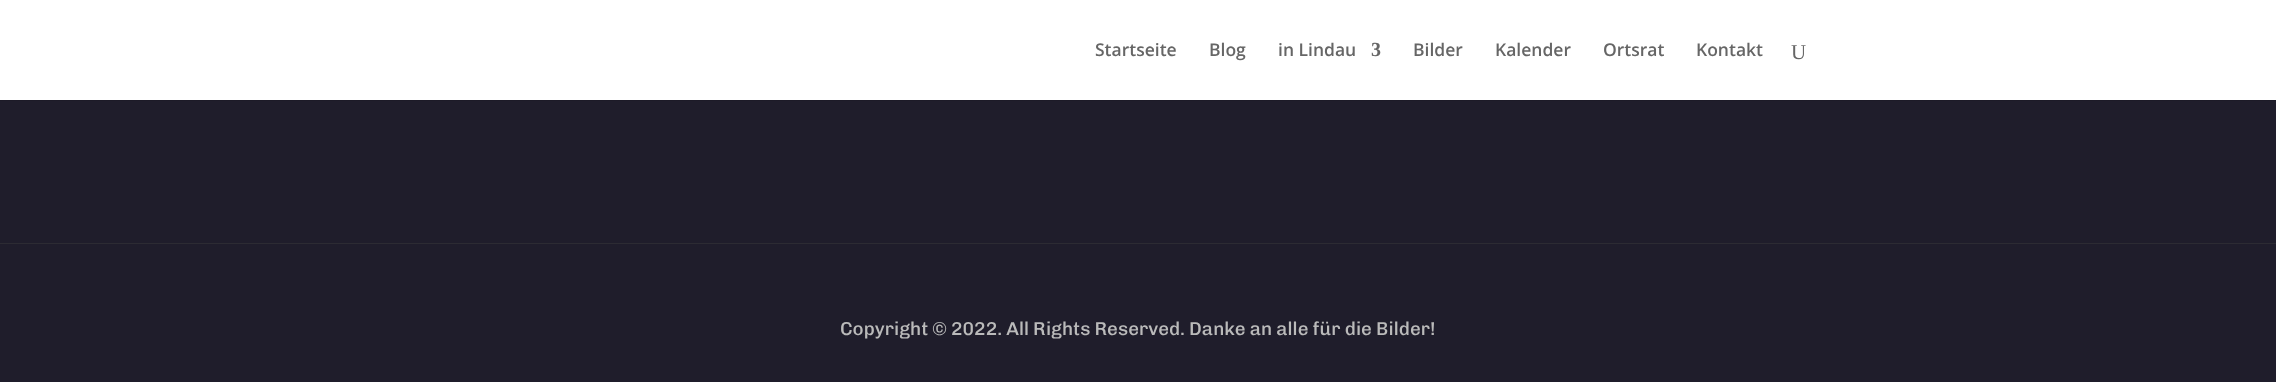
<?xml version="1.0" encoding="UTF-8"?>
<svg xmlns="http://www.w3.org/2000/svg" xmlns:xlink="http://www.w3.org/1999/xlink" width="2276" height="382">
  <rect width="100%" height="100%" fill="#1f1d2b" />
  <rect y="100" width="2276" height="1" fill="#1c1a27" />
  <rect width="2276" height="100" fill="#ffffff" />
  <rect y="243" width="2276" height="1" fill="#2c2b33" />
  <text x="1095" y="56" style="font-family: Open Sans; font-size: 17.5px; font-weight: 600; fill: #666666">Startseite</text>
  <text x="1209" y="56" style="font-family: Open Sans; font-size: 17.5px; font-weight: 600; fill: #666666">Blog</text>
  <text x="1278" y="56" style="font-family: Open Sans; font-size: 17.5px; font-weight: 600; fill: #666666">in Lindau</text>
  <text x="1371" y="56" style="font-family: Liberation Serif; font-size: 20px; font-weight: bold; fill: #666666">3</text>
  <text x="1413" y="56" style="font-family: Open Sans; font-size: 17.5px; font-weight: 600; fill: #666666">Bilder</text>
  <text x="1495" y="56" style="font-family: Open Sans; font-size: 17.5px; font-weight: 600; fill: #666666">Kalender</text>
  <text x="1603" y="56" style="font-family: Open Sans; font-size: 17.5px; font-weight: 600; fill: #666666">Ortsrat</text>
  <text x="1696" y="56" style="font-family: Open Sans; font-size: 17.5px; font-weight: 600; fill: #666666">Kontakt</text>
  <text x="1791" y="59" style="font-family: Liberation Serif; font-size: 21px; fill: #666666">U</text>
  <text x="840" y="335" style="font-family: Chivo; font-size: 18.75px; font-weight: 500; fill: #bababa">Copyright © 2022. All Rights Reserved. Danke an alle für die Bilder!</text>
</svg>
